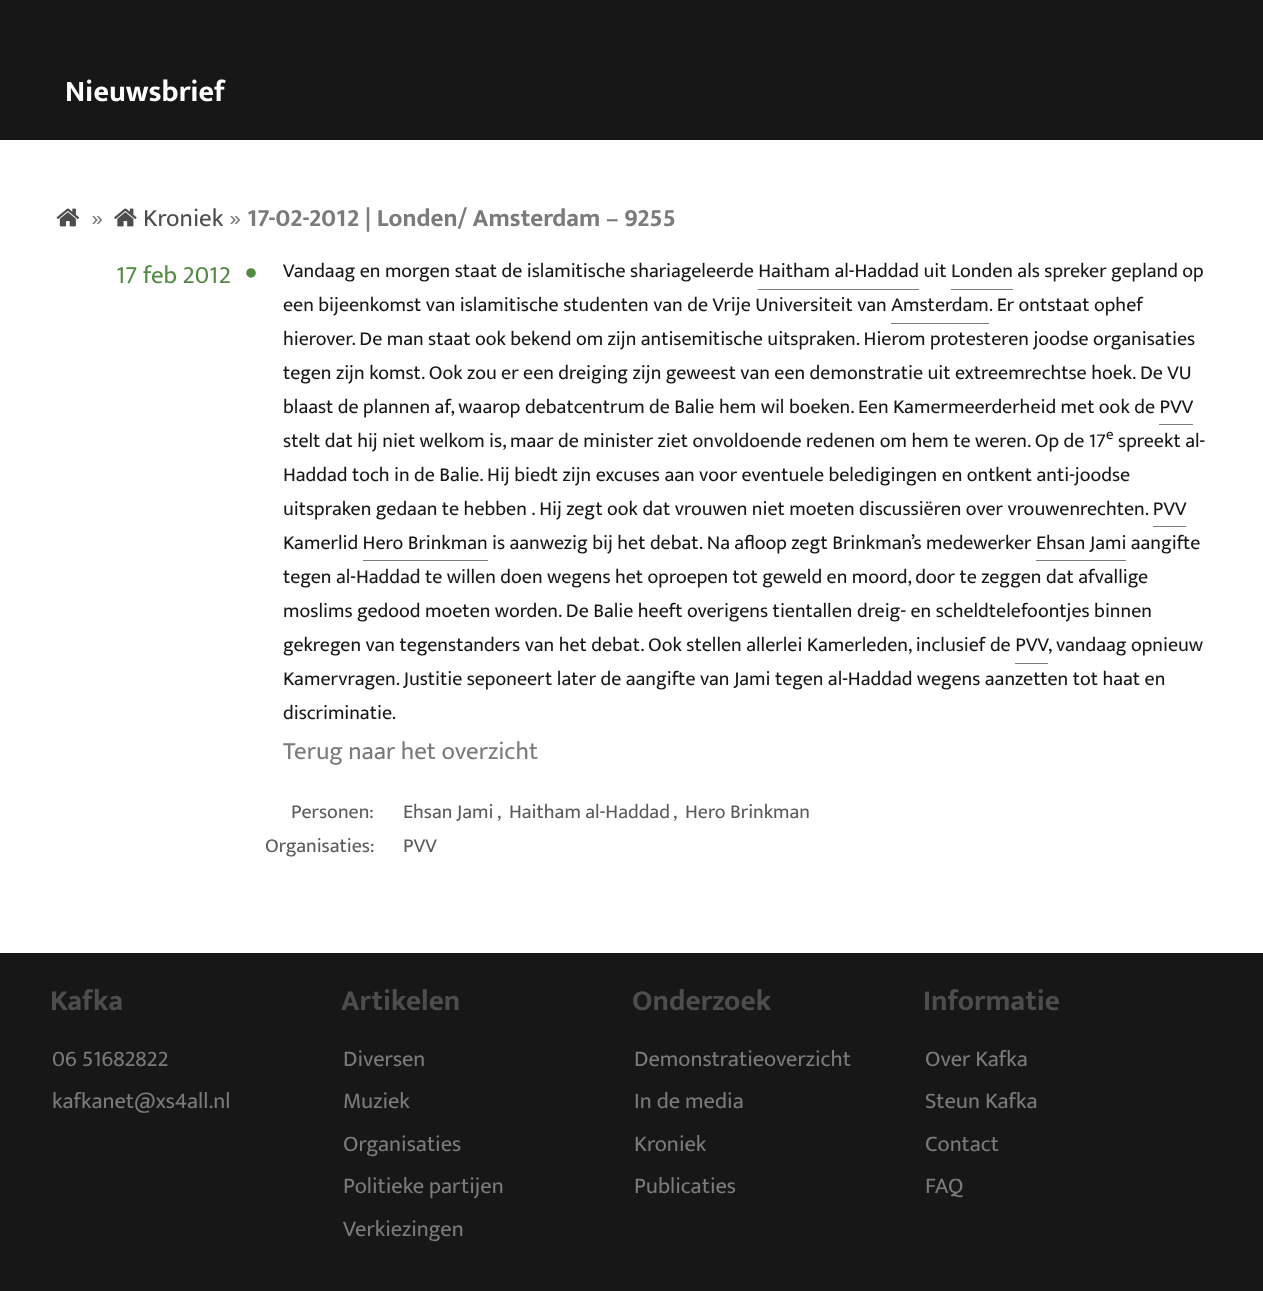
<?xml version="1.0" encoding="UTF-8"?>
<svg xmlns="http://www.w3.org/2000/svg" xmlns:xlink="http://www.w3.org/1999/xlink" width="1263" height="1291">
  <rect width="100%" height="100%" fill="#ffffff" />
  <rect width="1263" height="140" fill="#171717" />
  <image x="56" y="208" width="24" height="19" xlink:href="image1.png" />
  <image x="114" y="208" width="23" height="19" xlink:href="image2.png" />
  <rect x="758" y="289" width="161" height="1" fill="#7b7b7b" />
  <rect x="951" y="289" width="62" height="1" fill="#7b7b7b" />
  <rect x="891" y="323" width="98" height="1" fill="#7b7b7b" />
  <rect x="1159" y="424" width="34" height="1" fill="#7b7b7b" />
  <rect x="1153" y="526" width="33" height="1" fill="#7b7b7b" />
  <rect x="363" y="560" width="125" height="1" fill="#7b7b7b" />
  <rect x="1036" y="560" width="90" height="1" fill="#7b7b7b" />
  <rect x="1015" y="663" width="33" height="1" fill="#7b7b7b" />
  <rect y="953" width="1263" height="338" fill="#171717" />
  <text x="65" y="101" style="font-family: Ek Mukta; font-size: 30px; font-weight: bold; fill: #ffffff">Nieuwsbrief</text>
  <text x="91" y="226" style="font-family: Ek Mukta; font-size: 25px; fill: #7b7b7b">»</text>
  <text x="143" y="226" style="font-family: Ek Mukta; font-size: 25px; fill: #4d4d4d">Kroniek</text>
  <text x="229" y="226" style="font-family: Ek Mukta; font-size: 25px; fill: #7b7b7b">»</text>
  <text x="247" y="226" style="font-family: Ek Mukta; font-size: 25px; font-weight: bold; fill: #7b7b7b">17-02-2012 | Londen/ Amsterdam – 9255</text>
  <text x="116" y="283" style="font-family: Ek Mukta; font-size: 25px; fill: #528c43">17 feb 2012</text>
  <text x="244" y="283" style="font-family: Ek Mukta; font-size: 38px; fill: #528c43">•</text>
  <text x="283" y="277" style="font-family: Ek Mukta; font-size: 20px; fill: #171717">Vandaag en morgen staat de islamitische shariageleerde Haitham al-Haddad uit Londen als spreker gepland op</text>
  <text x="283" y="311" style="font-family: Ek Mukta; font-size: 20px; fill: #171717">een bijeenkomst van islamitische studenten van de Vrije Universiteit van Amsterdam. Er ontstaat ophef</text>
  <text x="283" y="345" style="font-family: Ek Mukta; font-size: 20px; fill: #171717">hierover. De man staat ook bekend om zijn antisemitische uitspraken. Hierom protesteren joodse organisaties</text>
  <text x="283" y="379" style="font-family: Ek Mukta; font-size: 20px; fill: #171717">tegen zijn komst. Ook zou er een dreiging zijn geweest van een demonstratie uit extreemrechtse hoek. De VU</text>
  <text x="283" y="413" style="font-family: Ek Mukta; font-size: 20px; fill: #171717">blaast de plannen af, waarop debatcentrum de Balie hem wil boeken. Een Kamermeerderheid met ook de PVV</text>
  <text x="283" y="447" style="font-family: Ek Mukta; font-size: 20px; fill: #171717">stelt dat hij niet welkom is, maar de minister ziet onvoldoende redenen om hem te weren. Op de 17</text>
  <text x="1106" y="439" style="font-family: Ek Mukta; font-size: 15px; fill: #171717">e</text>
  <text x="1118" y="447" style="font-family: Ek Mukta; font-size: 20px; fill: #171717">spreekt al-</text>
  <text x="283" y="481" style="font-family: Ek Mukta; font-size: 20px; fill: #171717">Haddad toch in de Balie. Hij biedt zijn excuses aan voor eventuele beledigingen en ontkent anti-joodse</text>
  <text x="283" y="515" style="font-family: Ek Mukta; font-size: 20px; fill: #171717">uitspraken gedaan te hebben . Hij zegt ook dat vrouwen niet moeten discussiëren over vrouwenrechten. PVV</text>
  <text x="283" y="549" style="font-family: Ek Mukta; font-size: 20px; fill: #171717">Kamerlid Hero Brinkman is aanwezig bij het debat. Na afloop zegt Brinkman’s medewerker Ehsan Jami aangifte</text>
  <text x="283" y="583" style="font-family: Ek Mukta; font-size: 20px; fill: #171717">tegen al-Haddad te willen doen wegens het oproepen tot geweld en moord, door te zeggen dat afvallige</text>
  <text x="283" y="617" style="font-family: Ek Mukta; font-size: 20px; fill: #171717">moslims gedood moeten worden. De Balie heeft overigens tientallen dreig- en scheldtelefoontjes binnen</text>
  <text x="283" y="651" style="font-family: Ek Mukta; font-size: 20px; fill: #171717">gekregen van tegenstanders van het debat. Ook stellen allerlei Kamerleden, inclusief de PVV</text>
  <text x="1048" y="651" style="font-family: Ek Mukta; font-size: 20px; fill: #171717">, vandaag opnieuw</text>
  <text x="283" y="685" style="font-family: Ek Mukta; font-size: 20px; fill: #171717">Kamervragen. Justitie seponeert later de aangifte van Jami tegen al-Haddad wegens aanzetten tot haat en</text>
  <text x="283" y="719" style="font-family: Ek Mukta; font-size: 20px; fill: #171717">discriminatie.</text>
  <text x="283" y="759" style="font-family: Ek Mukta; font-size: 25px; fill: #7b7b7b">Terug naar het overzicht</text>
  <text x="291" y="818" style="font-family: Ek Mukta; font-size: 20px; fill: #5c5c5c">Personen:</text>
  <text x="403" y="818" style="font-family: Ek Mukta; font-size: 20px; fill: #5c5c5c">Ehsan Jami</text>
  <text x="497" y="818" style="font-family: Ek Mukta; font-size: 20px; fill: #5c5c5c">,</text>
  <text x="509" y="818" style="font-family: Ek Mukta; font-size: 20px; fill: #5c5c5c">Haitham al-Haddad</text>
  <text x="673" y="818" style="font-family: Ek Mukta; font-size: 20px; fill: #5c5c5c">,</text>
  <text x="685" y="818" style="font-family: Ek Mukta; font-size: 20px; fill: #5c5c5c">Hero Brinkman</text>
  <text x="265" y="852" style="font-family: Ek Mukta; font-size: 20px; fill: #5c5c5c">Organisaties:</text>
  <text x="403" y="852" style="font-family: Ek Mukta; font-size: 20px; fill: #5c5c5c">PVV</text>
  <text x="50" y="1010" style="font-family: Ek Mukta; font-size: 29.25px; font-weight: bold; fill: #4d4d4d">Kafka</text>
  <text x="52" y="1066" style="font-family: Ek Mukta; font-size: 22.5px; fill: #7b7b7b">06 51682822</text>
  <text x="52" y="1108" style="font-family: Ek Mukta; font-size: 22.5px; fill: #7b7b7b">kafkanet@xs4all.nl</text>
  <text x="341" y="1010" style="font-family: Ek Mukta; font-size: 29.25px; font-weight: bold; fill: #4d4d4d">Artikelen</text>
  <text x="343" y="1066" style="font-family: Ek Mukta; font-size: 22.5px; fill: #7b7b7b">Diversen</text>
  <text x="343" y="1108" style="font-family: Ek Mukta; font-size: 22.5px; fill: #7b7b7b">Muziek</text>
  <text x="343" y="1151" style="font-family: Ek Mukta; font-size: 22.5px; fill: #7b7b7b">Organisaties</text>
  <text x="343" y="1193" style="font-family: Ek Mukta; font-size: 22.5px; fill: #7b7b7b">Politieke partijen</text>
  <text x="343" y="1236" style="font-family: Ek Mukta; font-size: 22.5px; fill: #7b7b7b">Verkiezingen</text>
  <text x="632" y="1010" style="font-family: Ek Mukta; font-size: 29.25px; font-weight: bold; fill: #4d4d4d">Onderzoek</text>
  <text x="634" y="1066" style="font-family: Ek Mukta; font-size: 22.5px; fill: #7b7b7b">Demonstratieoverzicht</text>
  <text x="634" y="1108" style="font-family: Ek Mukta; font-size: 22.5px; fill: #7b7b7b">In de media</text>
  <text x="634" y="1151" style="font-family: Ek Mukta; font-size: 22.5px; fill: #7b7b7b">Kroniek</text>
  <text x="634" y="1193" style="font-family: Ek Mukta; font-size: 22.5px; fill: #7b7b7b">Publicaties</text>
  <text x="923" y="1010" style="font-family: Ek Mukta; font-size: 29.25px; font-weight: bold; fill: #4d4d4d">Informatie</text>
  <text x="925" y="1066" style="font-family: Ek Mukta; font-size: 22.5px; fill: #7b7b7b">Over Kafka</text>
  <text x="925" y="1108" style="font-family: Ek Mukta; font-size: 22.5px; fill: #7b7b7b">Steun Kafka</text>
  <text x="925" y="1151" style="font-family: Ek Mukta; font-size: 22.5px; fill: #7b7b7b">Contact</text>
  <text x="925" y="1193" style="font-family: Ek Mukta; font-size: 22.5px; fill: #7b7b7b">FAQ</text>
</svg>
